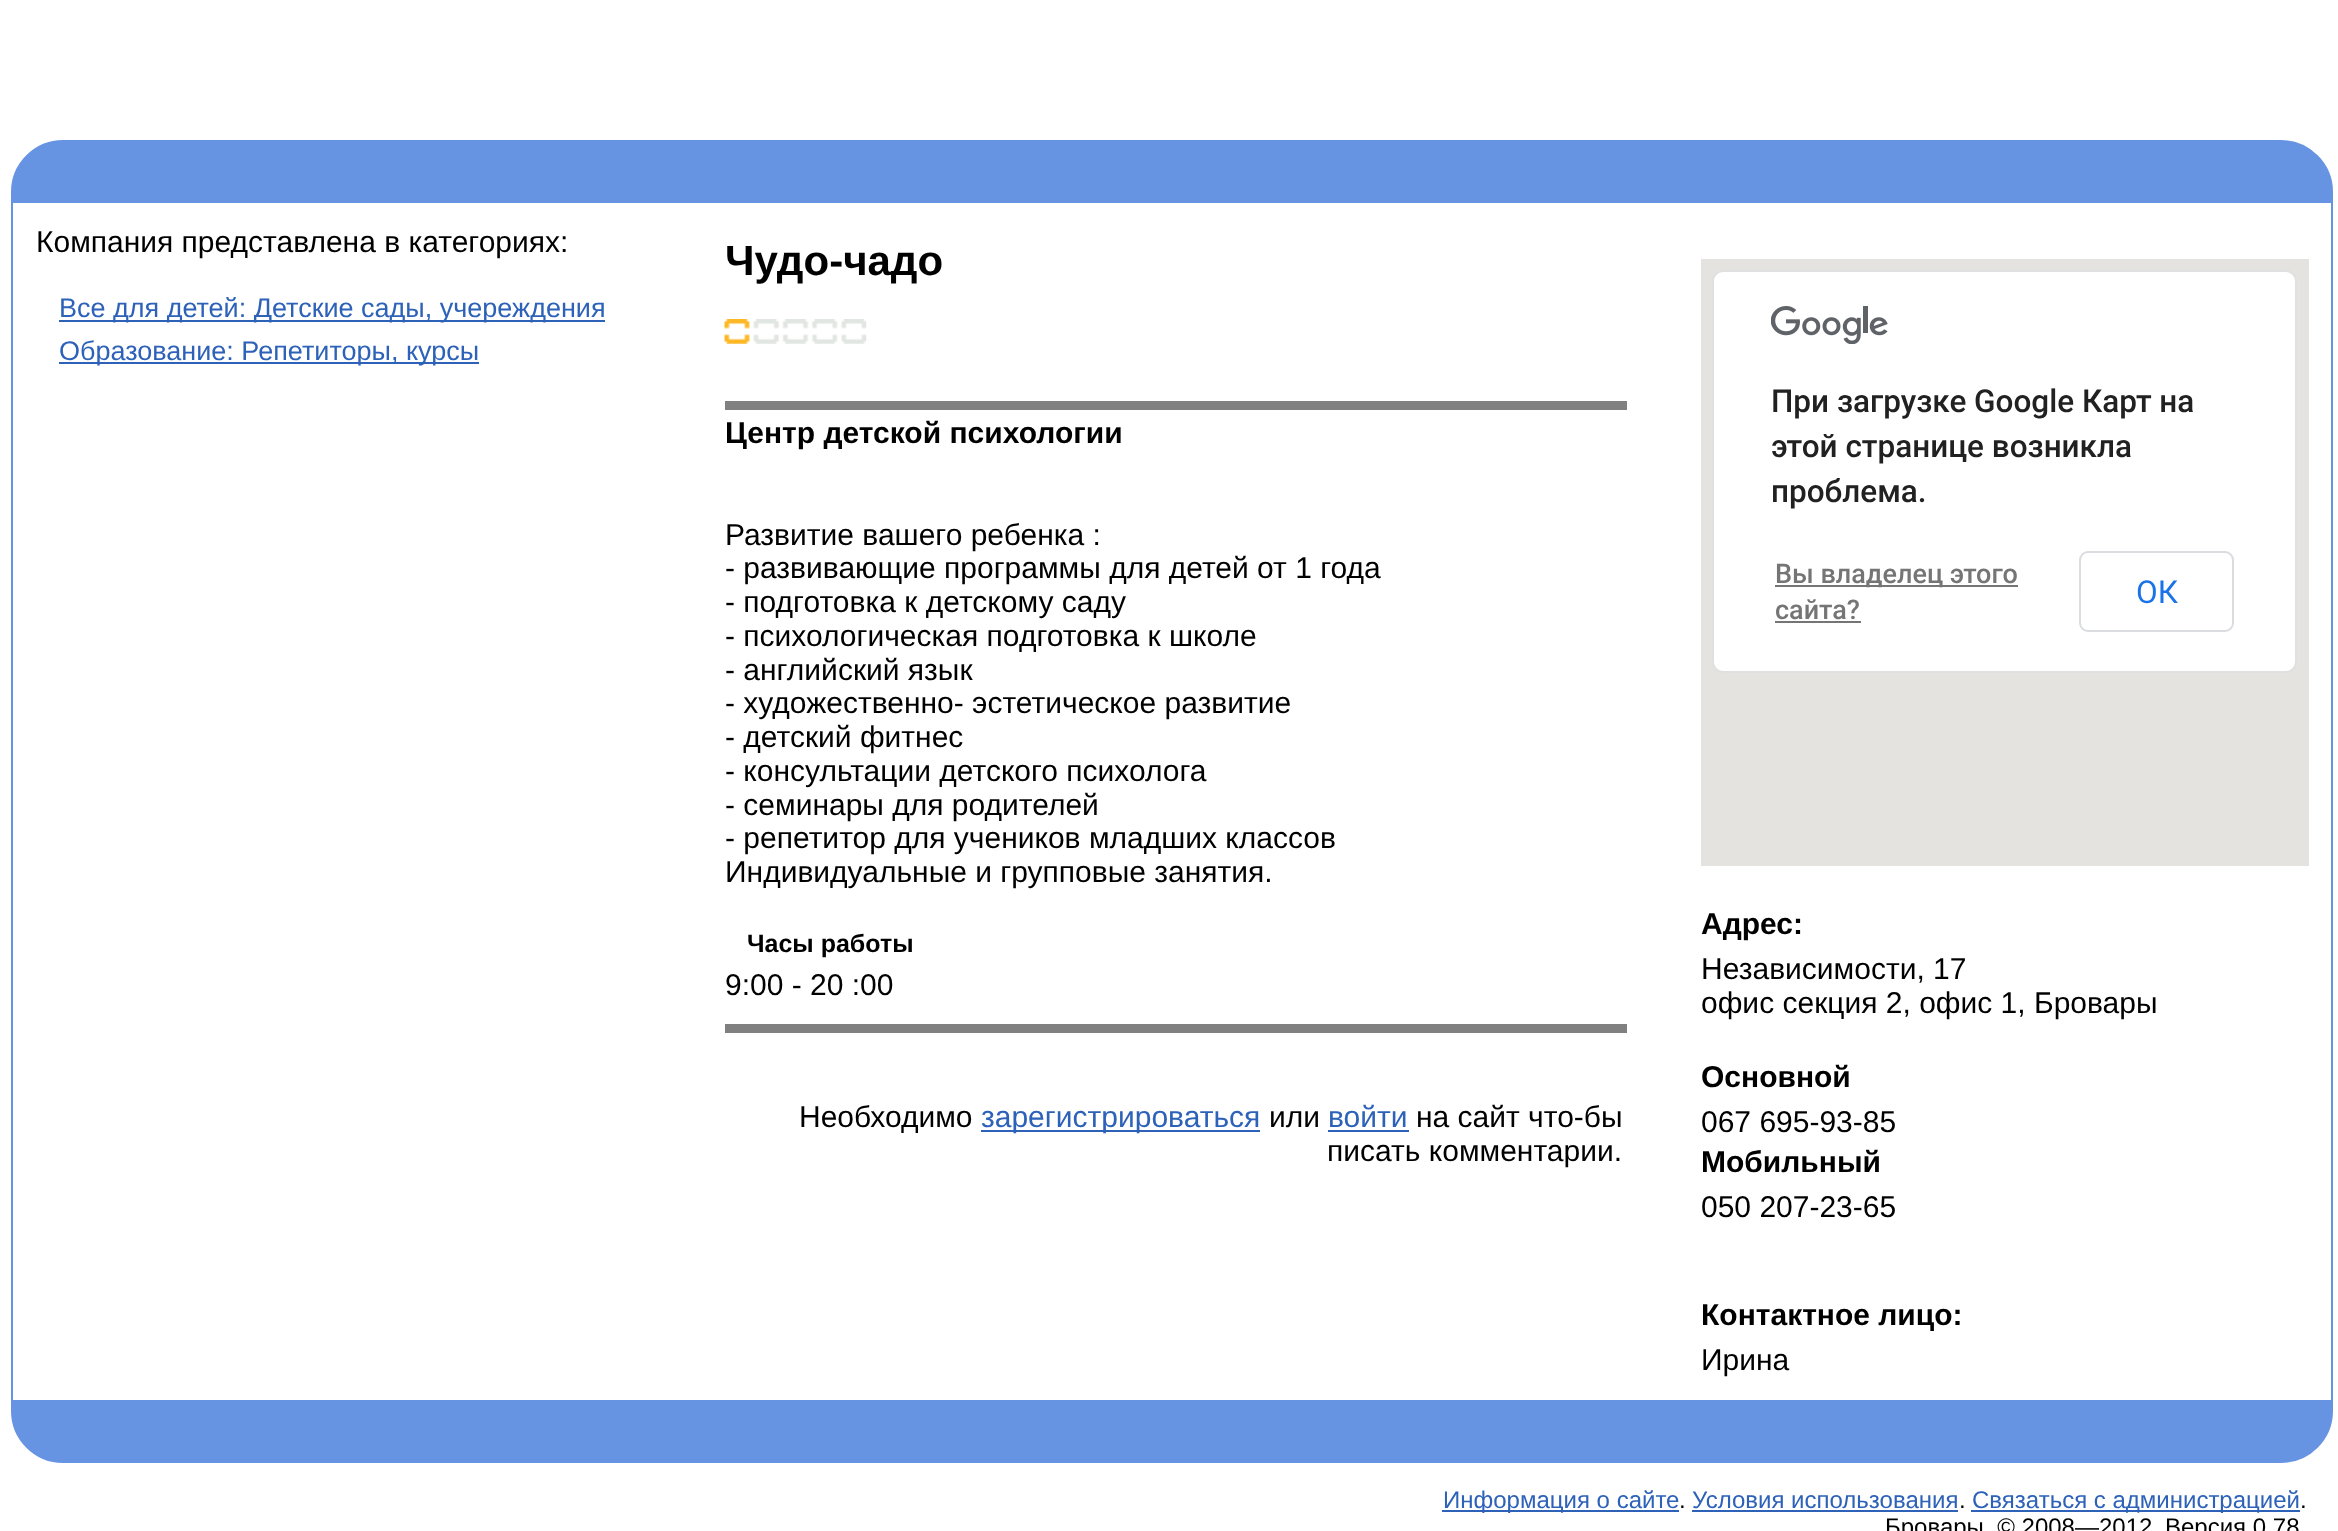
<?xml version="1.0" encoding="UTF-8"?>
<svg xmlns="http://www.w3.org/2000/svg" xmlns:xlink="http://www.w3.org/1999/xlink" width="2338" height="1531">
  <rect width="100%" height="100%" fill="#ffffff" />
  <path d="M 63 141 h 2218 c 28 0 51 23 51 51 v 10 h -2320 v -10 c 0 -28 23 -51 51 -51 z" fill="#6694e3" stroke="#6694e3" stroke-width="2" />
  <rect x="2331" y="203" width="2" height="1197" fill="#6694e3" />
  <rect x="11" y="203" width="2" height="1197" fill="#6694e3" />
  <rect x="59" y="320" width="546" height="2" fill="#2d62b8" />
  <rect x="59" y="362" width="420" height="2" fill="#2d62b8" />
  <image x="724" y="319" width="143" height="25" xlink:href="image1.png" />
  <rect x="725" y="401" width="902" height="9" fill="#808080" />
  <rect x="725" y="1024" width="902" height="9" fill="#808080" />
  <rect x="981" y="1130" width="279" height="2" fill="#2d62b8" />
  <rect x="1328" y="1130" width="81" height="2" fill="#2d62b8" />
  <rect x="1701" y="259" width="608" height="607" fill="#e5e3df" />
  <rect x="1712" y="270" width="585" height="403" rx="11" fill="#ffffff" />
  <rect x="1713" y="271" width="583" height="401" rx="10" fill="none" stroke="#000000" stroke-opacity="0.12" stroke-width="2" />
  <image x="1771" y="306" width="117" height="38" xlink:href="image2.png" />
  <rect x="1775" y="585" width="243" height="2" fill="#757575" />
  <rect x="1775" y="621" width="86" height="2" fill="#757575" />
  <rect x="2080" y="552" width="153" height="79" rx="8" fill="none" stroke="#dadce0" stroke-width="2" />
  <path d="M 12 1401 h 2320 v 10 c 0 28 -23 51 -51 51 h -2218 c -28 0 -51 -23 -51 -51 z" fill="#6694e3" stroke="#6694e3" stroke-width="2" />
  <rect x="1442" y="1510" width="237" height="2" fill="#2d62b8" />
  <rect x="1692" y="1510" width="266" height="2" fill="#2d62b8" />
  <rect x="1971" y="1510" width="329" height="2" fill="#2d62b8" />
  <text x="36" y="252" style="font-family: Liberation Sans; font-size: 30px; fill: #000000">Компания представлена в категориях:</text>
  <text x="59" y="317" style="font-family: Liberation Sans; font-size: 27px; fill: #2d62b8">Все для детей: Детские сады, учереждения</text>
  <text x="59" y="360" style="font-family: Liberation Sans; font-size: 27px; fill: #2d62b8">Образование: Репетиторы, курсы</text>
  <text x="725" y="275" style="font-family: Liberation Sans; font-size: 42px; font-weight: bold; fill: #000000">Чудо-чадо</text>
  <text x="725" y="443" style="font-family: Liberation Sans; font-size: 30px; font-weight: bold; fill: #000000">Центр детской психологии</text>
  <text x="725" y="545" style="font-family: Liberation Sans; font-size: 30px; fill: #000000">Развитие вашего ребенка :</text>
  <text x="725" y="578" style="font-family: Liberation Sans; font-size: 30px; fill: #000000">- развивающие программы для детей от 1 года</text>
  <text x="725" y="612" style="font-family: Liberation Sans; font-size: 30px; fill: #000000">- подготовка к детскому саду</text>
  <text x="725" y="646" style="font-family: Liberation Sans; font-size: 30px; fill: #000000">- психологическая подготовка к школе</text>
  <text x="725" y="680" style="font-family: Liberation Sans; font-size: 30px; fill: #000000">- английский язык</text>
  <text x="725" y="713" style="font-family: Liberation Sans; font-size: 30px; fill: #000000">- художественно- эстетическое развитие</text>
  <text x="725" y="747" style="font-family: Liberation Sans; font-size: 30px; fill: #000000">- детский фитнес</text>
  <text x="725" y="781" style="font-family: Liberation Sans; font-size: 30px; fill: #000000">- консультации детского психолога</text>
  <text x="725" y="815" style="font-family: Liberation Sans; font-size: 30px; fill: #000000">- семинары для родителей</text>
  <text x="725" y="848" style="font-family: Liberation Sans; font-size: 30px; fill: #000000">- репетитор для учеников младших классов</text>
  <text x="725" y="882" style="font-family: Liberation Sans; font-size: 30px; fill: #000000">Индивидуальные и групповые занятия.</text>
  <text x="747" y="952" style="font-family: Liberation Sans; font-size: 25px; font-weight: bold; fill: #000000">Часы работы</text>
  <text x="725" y="995" style="font-family: Liberation Sans; font-size: 30px; fill: #000000">9:00 - 20 :00</text>
  <text x="799" y="1127" style="font-family: Liberation Sans; font-size: 30px; fill: #000000">Необходимо</text>
  <text x="981" y="1127" style="font-family: Liberation Sans; font-size: 30px; fill: #2d62b8">зарегистрироваться</text>
  <text x="1269" y="1127" style="font-family: Liberation Sans; font-size: 30px; fill: #000000">или</text>
  <text x="1328" y="1127" style="font-family: Liberation Sans; font-size: 30px; fill: #2d62b8">войти</text>
  <text x="1416" y="1127" style="font-family: Liberation Sans; font-size: 30px; fill: #000000">на сайт что-бы</text>
  <text x="1327" y="1161" style="font-family: Liberation Sans; font-size: 30px; fill: #000000">писать комментарии.</text>
  <text x="1771" y="412" style="font-family: Roboto; font-size: 31.5px; font-weight: 500; fill: #212121">При загрузке Google Карт на</text>
  <text x="1771" y="457" style="font-family: Roboto; font-size: 31.5px; font-weight: 500; fill: #212121">этой странице возникла</text>
  <text x="1771" y="502" style="font-family: Roboto; font-size: 31.5px; font-weight: 500; fill: #212121">проблема.</text>
  <text x="1775" y="583" style="font-family: Roboto; font-size: 27px; font-weight: 500; fill: #757575">Вы владелец этого</text>
  <text x="1775" y="619" style="font-family: Roboto; font-size: 27px; font-weight: 500; fill: #757575">сайта?</text>
  <text x="2136" y="603" style="font-family: Roboto; font-size: 31.5px; fill: #1a73e8">ОК</text>
  <text x="1701" y="934" style="font-family: Liberation Sans; font-size: 30px; font-weight: bold; fill: #000000">Адрес:</text>
  <text x="1701" y="979" style="font-family: Liberation Sans; font-size: 30px; fill: #000000">Независимости, 17</text>
  <text x="1701" y="1013" style="font-family: Liberation Sans; font-size: 30px; fill: #000000">офис секция 2, офис 1, Бровары</text>
  <text x="1701" y="1087" style="font-family: Liberation Sans; font-size: 30px; font-weight: bold; fill: #000000">Основной</text>
  <text x="1701" y="1132" style="font-family: Liberation Sans; font-size: 30px; fill: #000000">067 695-93-85</text>
  <text x="1701" y="1172" style="font-family: Liberation Sans; font-size: 30px; font-weight: bold; fill: #000000">Мобильный</text>
  <text x="1701" y="1217" style="font-family: Liberation Sans; font-size: 30px; fill: #000000">050 207-23-65</text>
  <text x="1701" y="1325" style="font-family: Liberation Sans; font-size: 30px; font-weight: bold; fill: #000000">Контактное лицо:</text>
  <text x="1701" y="1370" style="font-family: Liberation Sans; font-size: 30px; fill: #000000">Ирина</text>
  <text x="1443" y="1508" style="font-family: Liberation Sans; font-size: 24px; fill: #2d62b8">Информация о сайте</text>
  <text x="1679" y="1508" style="font-family: Liberation Sans; font-size: 24px; fill: #000000">.</text>
  <text x="1692" y="1508" style="font-family: Liberation Sans; font-size: 24px; fill: #2d62b8">Условия использования</text>
  <text x="1959" y="1508" style="font-family: Liberation Sans; font-size: 24px; fill: #000000">.</text>
  <text x="1972" y="1508" style="font-family: Liberation Sans; font-size: 24px; fill: #2d62b8">Связаться с администрацией</text>
  <text x="2300" y="1508" style="font-family: Liberation Sans; font-size: 24px; fill: #000000">.</text>
  <text x="1885" y="1535" style="font-family: Liberation Sans; font-size: 24px; fill: #000000">Бровары, © 2008—2012</text>
  <text x="2165" y="1535" style="font-family: Liberation Sans; font-size: 24px; fill: #000000">Версия 0,78</text>
</svg>
